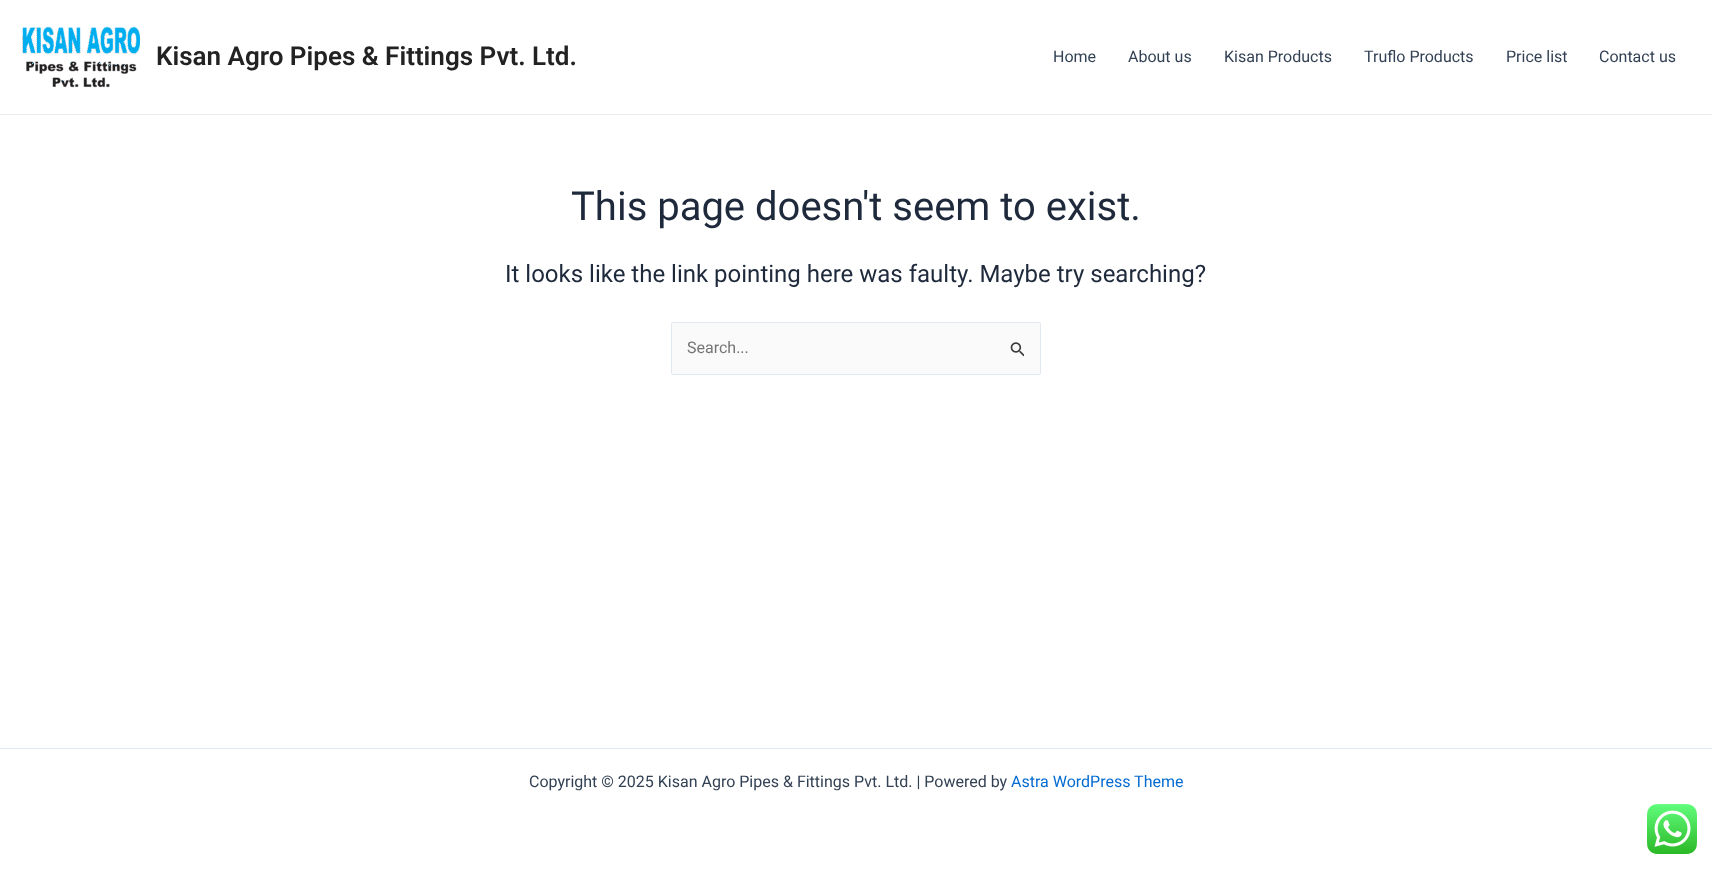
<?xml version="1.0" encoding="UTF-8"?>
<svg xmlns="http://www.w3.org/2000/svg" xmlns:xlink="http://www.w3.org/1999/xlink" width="1712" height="869">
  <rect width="100%" height="100%" fill="#ffffff" />
  <rect y="114" width="1712" height="1" fill="#eaeaea" />
  <image x="21" y="26" width="119" height="62" xlink:href="image1.png" />
  <rect x="671.5" y="322.5" width="369" height="52" rx="1.5" fill="#fafafa" stroke="#e2e8f0" />
  <image x="1010" y="342" width="14" height="15" xlink:href="image2.png" />
  <rect y="748" width="1712" height="1" fill="#e2e8f0" />
  <image x="1647" y="804" width="50" height="50" xlink:href="image3.png" />
  <text x="156" y="65" style="font-family: Roboto; font-size: 26px; font-weight: 600; fill: #222222">Kisan Agro Pipes &amp; Fittings Pvt. Ltd.</text>
  <text x="1053" y="62" style="font-family: Roboto; font-size: 16px; fill: #334155">Home</text>
  <text x="1128" y="62" style="font-family: Roboto; font-size: 16px; fill: #334155">About us</text>
  <text x="1224" y="62" style="font-family: Roboto; font-size: 16px; fill: #334155">Kisan Products</text>
  <text x="1364" y="62" style="font-family: Roboto; font-size: 16px; fill: #334155">Truflo Products</text>
  <text x="1506" y="62" style="font-family: Roboto; font-size: 16px; fill: #334155">Price list</text>
  <text x="1599" y="62" style="font-family: Roboto; font-size: 16px; fill: #334155">Contact us</text>
  <text x="571" y="220" style="font-family: Roboto; font-size: 40px; fill: #1e293b">This page doesn't seem to exist.</text>
  <text x="505" y="282" style="font-family: Roboto; font-size: 24px; fill: #1e293b">It looks like the link pointing here was faulty. Maybe try searching?</text>
  <text x="687" y="353" style="font-family: Roboto; font-size: 16px; fill: #757575">Search...</text>
  <text x="529" y="787" style="font-family: Roboto; font-size: 16px; fill: #334155">Copyright © 2025 Kisan Agro Pipes &amp; Fittings Pvt. Ltd. | Powered by</text>
  <text x="1011" y="787" style="font-family: Roboto; font-size: 16px; fill: #046bd2">Astra WordPress Theme</text>
</svg>
